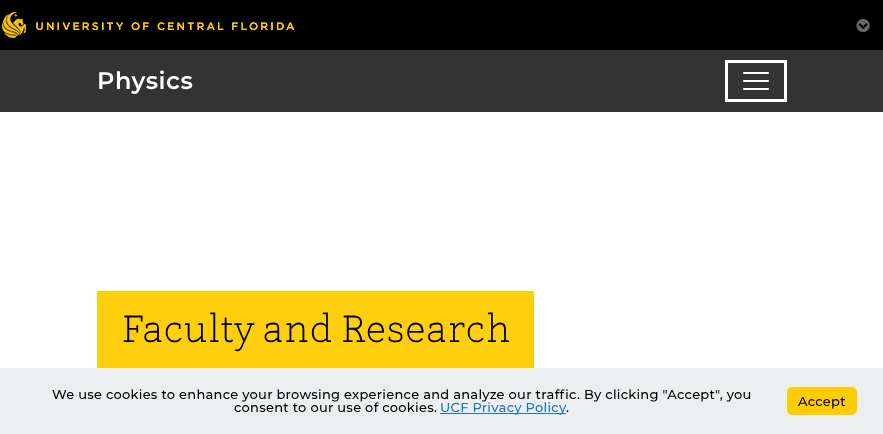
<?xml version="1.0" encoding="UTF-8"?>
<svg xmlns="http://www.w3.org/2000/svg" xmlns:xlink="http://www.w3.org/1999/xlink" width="883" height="434">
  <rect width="100%" height="100%" fill="#ffffff" />
  <rect width="883" height="50" fill="#000000" />
  <image x="2" y="12" width="293" height="26" xlink:href="image1.png" />
  <image x="856" y="19" width="14" height="13" xlink:href="image2.png" />
  <rect y="50" width="883" height="62" fill="#333333" />
  <rect x="726.5" y="61.5" width="59" height="39" fill="none" stroke="#ffffff" stroke-width="3" />
  <image x="743" y="72" width="26" height="18" xlink:href="image3.png" />
  <rect x="97" y="291" width="437" height="77" fill="#ffcf0d" />
  <rect y="368" width="883" height="66" fill="#eceeef" />
  <rect x="440" y="413" width="126" height="1" fill="#1e73be" />
  <rect x="787.5" y="387.5" width="69" height="27" rx="4.5" fill="#ffcc00" stroke="#ffcc00" />
  <text x="97" y="89" style="font-family: Montserrat; font-size: 24px; font-weight: 600; fill: #ffffff">Physics</text>
  <text x="121" y="342" style="font-family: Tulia; font-size: 44px; fill: #000000">Faculty and Research</text>
  <text x="52" y="399" style="font-family: Montserrat; font-size: 13px; font-weight: 500; fill: #000000">We use cookies to enhance your browsing experience and analyze our traffic. By clicking "Accept", you</text>
  <text x="234" y="412" style="font-family: Montserrat; font-size: 13px; font-weight: 500; fill: #000000">consent to our use of cookies.</text>
  <text x="440" y="412" style="font-family: Montserrat; font-size: 13px; font-weight: 500; fill: #1e73be">UCF Privacy Policy</text>
  <text x="566" y="412" style="font-family: Montserrat; font-size: 13px; font-weight: 500; fill: #000000">.</text>
  <text x="798" y="406" style="font-family: Montserrat; font-size: 13px; font-weight: 500; fill: #000000">Accept</text>
</svg>
